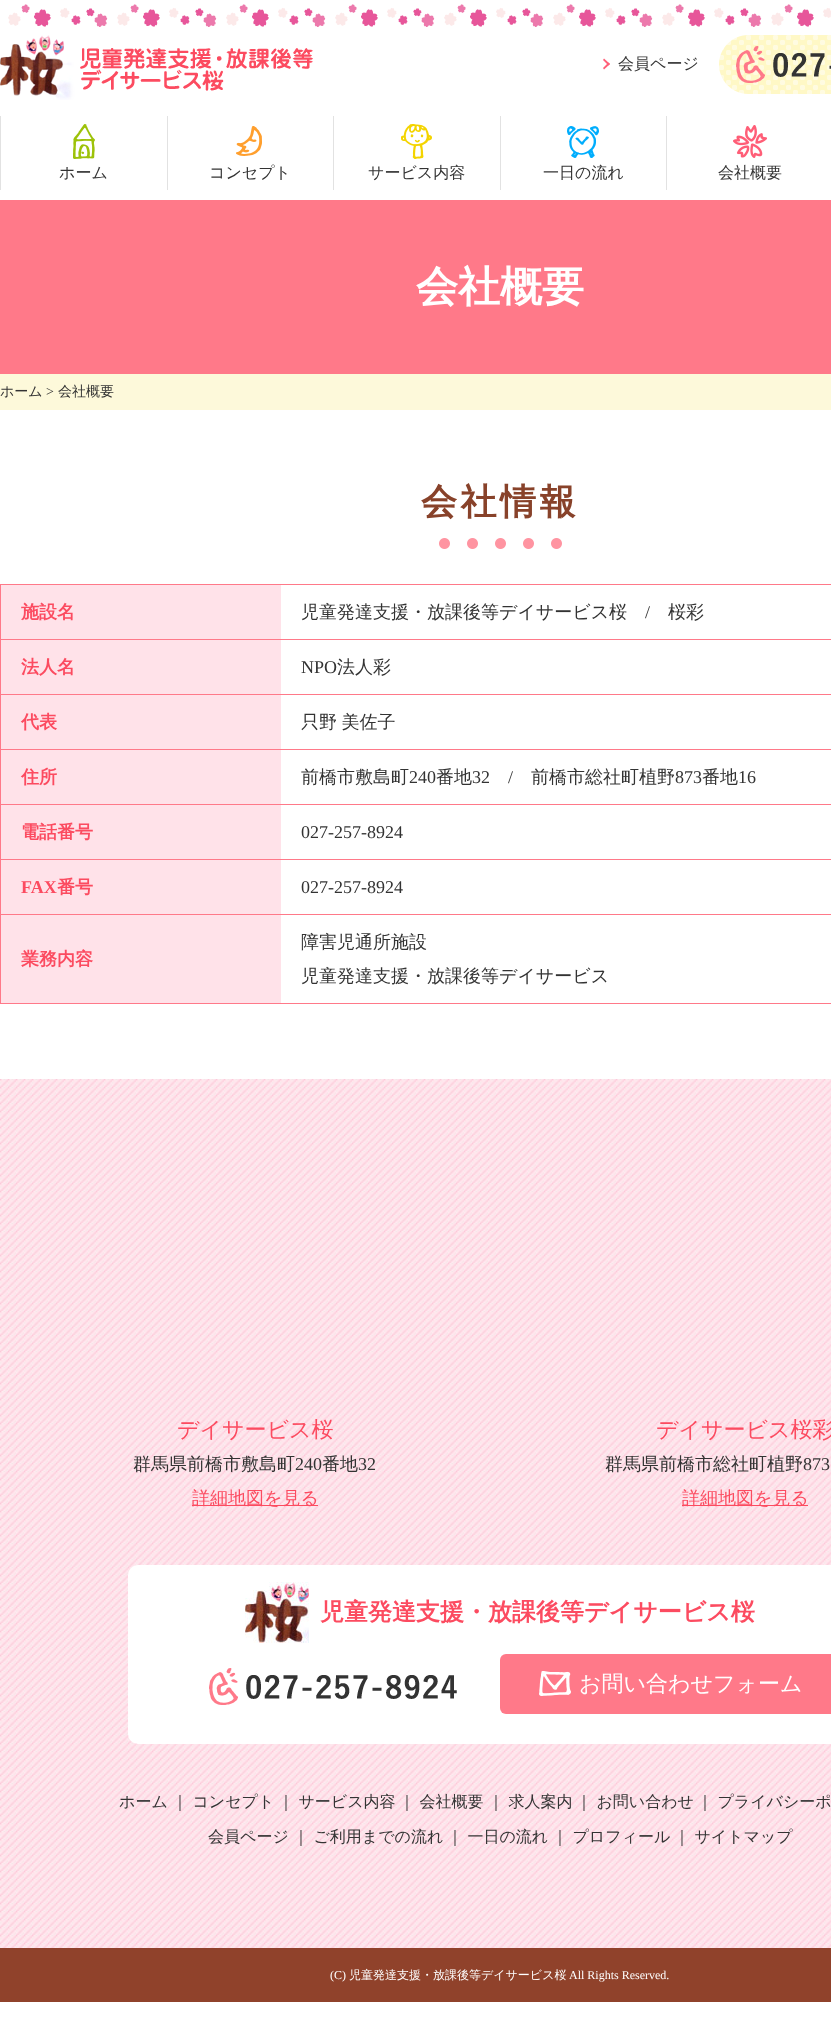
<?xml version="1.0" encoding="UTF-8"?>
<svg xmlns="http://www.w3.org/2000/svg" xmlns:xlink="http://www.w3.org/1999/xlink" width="831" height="2039">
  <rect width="100%" height="100%" fill="#ffffff" />
  <image x="8" y="4" width="823" height="23" xlink:href="image1.png" />
  <image x="0" y="35" width="313" height="65" xlink:href="image2.png" />
  <path d="M 604 58.5 l 6 5.5 l -1.5 1.5 l -5.5 -5.5 z" fill="#ff5f78" />
  <path d="M 608.5 62.5 l 1.5 1.5 l -6 5.5 l -1 -1.5 z" fill="#ff5f78" />
  <image x="719" y="35" width="112" height="59" xlink:href="image3.png" />
  <rect y="116" width="1" height="74" fill="#e2e2e2" />
  <rect x="167" y="116" width="1" height="74" fill="#e2e2e2" />
  <image x="73" y="124" width="22" height="35" xlink:href="image4.png" />
  <rect x="333" y="116" width="1" height="74" fill="#e2e2e2" />
  <image x="236" y="126" width="26" height="30" xlink:href="image5.png" />
  <rect x="500" y="116" width="1" height="74" fill="#e2e2e2" />
  <image x="401" y="124" width="31" height="35" xlink:href="image6.png" />
  <rect x="666" y="116" width="1" height="74" fill="#e2e2e2" />
  <image x="567" y="126" width="32" height="32" xlink:href="image7.png" />
  <image x="733" y="125" width="34" height="33" xlink:href="image8.png" />
  <rect y="200" width="831" height="174" fill="#ff7989" />
  <rect y="374" width="831" height="36" fill="#fdf9da" />
  <image x="439" y="538" width="123" height="11" xlink:href="image9.png" />
  <rect y="584" width="831" height="1" fill="#ff7989" />
  <rect y="584" width="1" height="420" fill="#ff7989" />
  <rect y="639" width="831" height="1" fill="#ff7989" />
  <rect x="1" y="585" width="280" height="54" fill="#ffe2e9" />
  <rect y="694" width="831" height="1" fill="#ff7989" />
  <rect x="1" y="640" width="280" height="54" fill="#ffe2e9" />
  <rect y="749" width="831" height="1" fill="#ff7989" />
  <rect x="1" y="695" width="280" height="54" fill="#ffe2e9" />
  <rect y="804" width="831" height="1" fill="#ff7989" />
  <rect x="1" y="750" width="280" height="54" fill="#ffe2e9" />
  <rect y="859" width="831" height="1" fill="#ff7989" />
  <rect x="1" y="805" width="280" height="54" fill="#ffe2e9" />
  <rect y="914" width="831" height="1" fill="#ff7989" />
  <rect x="1" y="860" width="280" height="54" fill="#ffe2e9" />
  <rect y="1003" width="831" height="1" fill="#ff7989" />
  <rect x="1" y="915" width="280" height="88" fill="#ffe2e9" />
  <image x="0" y="1079" width="831" height="869" xlink:href="image10.png" />
  <rect x="192" y="1505" width="126" height="1" fill="#fc4b60" />
  <rect x="682" y="1505" width="126" height="1" fill="#fc4b60" />
  <rect x="128" y="1565" width="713" height="179" rx="10" fill="#ffffff" />
  <image x="245" y="1582" width="64" height="61" xlink:href="image11.png" />
  <image x="209" y="1668" width="248" height="37" xlink:href="image12.png" />
  <rect x="500" y="1654" width="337" height="60" rx="6" fill="#ff7989" />
  <image x="539" y="1671" width="32" height="25" xlink:href="image13.png" />
  <rect y="1948" width="831" height="54" fill="#90422b" />
  <text x="618" y="69" style="font-family: WenQuanYi Zen Hei; font-size: 16px; font-weight: 500; fill: #333333">会員ページ</text>
  <text x="59" y="178" style="font-family: WenQuanYi Zen Hei; font-size: 16px; font-weight: 500; fill: #333333">ホーム</text>
  <text x="209" y="178" style="font-family: WenQuanYi Zen Hei; font-size: 16px; font-weight: 500; fill: #333333">コンセプト</text>
  <text x="368" y="178" style="font-family: WenQuanYi Zen Hei; font-size: 16px; font-weight: 500; fill: #333333">サービス内容</text>
  <text x="543" y="178" style="font-family: WenQuanYi Zen Hei; font-size: 16px; font-weight: 500; fill: #333333">一日の流れ</text>
  <text x="718" y="178" style="font-family: WenQuanYi Zen Hei; font-size: 16px; font-weight: 500; fill: #333333">会社概要</text>
  <text x="416" y="301" style="font-family: WenQuanYi Zen Hei; font-size: 42px; font-weight: bold; fill: #ffffff">会社概要</text>
  <text x="0" y="396" style="font-family: WenQuanYi Zen Hei; font-size: 14px; font-weight: 500; fill: #333333">ホーム</text>
  <text x="46" y="396" style="font-family: Liberation Serif; font-size: 14px; fill: #333333">&gt;</text>
  <text x="58" y="396" style="font-family: WenQuanYi Zen Hei; font-size: 14px; font-weight: 500; fill: #333333">会社概要</text>
  <text x="421" y="514" style="font-family: WenQuanYi Zen Hei; font-size: 36px; font-weight: bold; letter-spacing: 3.5px; fill: #88422a">会社情報</text>
  <text x="21" y="618" style="font-family: WenQuanYi Zen Hei; font-size: 18px; font-weight: bold; fill: #fc4b60">施設名</text>
  <text x="301" y="618" style="font-family: WenQuanYi Zen Hei; font-size: 18px; font-weight: 500; fill: #333333">児童発達支援・放課後等デイサービス桜</text>
  <text x="645" y="618" style="font-family: Liberation Serif; font-size: 18px; fill: #333333">/</text>
  <text x="668" y="618" style="font-family: WenQuanYi Zen Hei; font-size: 18px; font-weight: 500; fill: #333333">桜彩</text>
  <text x="21" y="673" style="font-family: WenQuanYi Zen Hei; font-size: 18px; font-weight: bold; fill: #fc4b60">法人名</text>
  <text x="301" y="673" style="font-family: Liberation Serif; font-size: 18px; fill: #333333">NPO</text>
  <text x="337" y="673" style="font-family: WenQuanYi Zen Hei; font-size: 18px; font-weight: 500; fill: #333333">法人彩</text>
  <text x="21" y="728" style="font-family: WenQuanYi Zen Hei; font-size: 18px; font-weight: bold; fill: #fc4b60">代表</text>
  <text x="301" y="728" word-spacing="-1" style="font-family: WenQuanYi Zen Hei; font-size: 18px; font-weight: 500; fill: #333333">只野 美佐子</text>
  <text x="21" y="783" style="font-family: WenQuanYi Zen Hei; font-size: 18px; font-weight: bold; fill: #fc4b60">住所</text>
  <text x="301" y="783" style="font-family: WenQuanYi Zen Hei; font-size: 18px; font-weight: 500; fill: #333333">前橋市敷島町</text>
  <text x="409" y="783" style="font-family: Liberation Serif; font-size: 18px; fill: #333333">240</text>
  <text x="436" y="783" style="font-family: WenQuanYi Zen Hei; font-size: 18px; font-weight: 500; fill: #333333">番地</text>
  <text x="472" y="783" style="font-family: Liberation Serif; font-size: 18px; fill: #333333">32</text>
  <text x="508" y="783" style="font-family: Liberation Serif; font-size: 18px; fill: #333333">/</text>
  <text x="531" y="783" style="font-family: WenQuanYi Zen Hei; font-size: 18px; font-weight: 500; fill: #333333">前橋市総社町植野</text>
  <text x="675" y="783" style="font-family: Liberation Serif; font-size: 18px; fill: #333333">873</text>
  <text x="702" y="783" style="font-family: WenQuanYi Zen Hei; font-size: 18px; font-weight: 500; fill: #333333">番地</text>
  <text x="738" y="783" style="font-family: Liberation Serif; font-size: 18px; fill: #333333">16</text>
  <text x="21" y="838" style="font-family: WenQuanYi Zen Hei; font-size: 18px; font-weight: bold; fill: #fc4b60">電話番号</text>
  <text x="301" y="838" style="font-family: Liberation Serif; font-size: 18px; fill: #333333">027-257-8924</text>
  <text x="21" y="893" style="font-family: Liberation Serif; font-size: 18px; font-weight: bold; fill: #fc4b60">FAX</text>
  <text x="57" y="893" style="font-family: WenQuanYi Zen Hei; font-size: 18px; font-weight: bold; fill: #fc4b60">番号</text>
  <text x="301" y="893" style="font-family: Liberation Serif; font-size: 18px; fill: #333333">027-257-8924</text>
  <text x="21" y="965" style="font-family: WenQuanYi Zen Hei; font-size: 18px; font-weight: bold; fill: #fc4b60">業務内容</text>
  <text x="301" y="948" style="font-family: WenQuanYi Zen Hei; font-size: 18px; font-weight: 500; fill: #333333">障害児通所施設</text>
  <text x="301" y="982" style="font-family: WenQuanYi Zen Hei; font-size: 18px; font-weight: 500; fill: #333333">児童発達支援・放課後等デイサービス</text>
  <text x="177" y="1437" style="font-family: WenQuanYi Zen Hei; font-size: 22px; font-weight: 500; fill: #fc4b60">デイサービス桜</text>
  <text x="133" y="1470" style="font-family: WenQuanYi Zen Hei; font-size: 18px; font-weight: 500; fill: #333333">群馬県前橋市敷島町</text>
  <text x="295" y="1470" style="font-family: Liberation Serif; font-size: 18px; fill: #333333">240</text>
  <text x="322" y="1470" style="font-family: WenQuanYi Zen Hei; font-size: 18px; font-weight: 500; fill: #333333">番地</text>
  <text x="358" y="1470" style="font-family: Liberation Serif; font-size: 18px; fill: #333333">32</text>
  <text x="192" y="1504" style="font-family: WenQuanYi Zen Hei; font-size: 18px; font-weight: 500; fill: #fc4b60">詳細地図を見る</text>
  <text x="656" y="1437" style="font-family: WenQuanYi Zen Hei; font-size: 22px; font-weight: 500; fill: #fc4b60">デイサービス桜彩</text>
  <text x="605" y="1470" style="font-family: WenQuanYi Zen Hei; font-size: 18px; font-weight: 500; fill: #333333">群馬県前橋市総社町植野</text>
  <text x="803" y="1470" style="font-family: Liberation Serif; font-size: 18px; fill: #333333">873</text>
  <text x="682" y="1504" style="font-family: WenQuanYi Zen Hei; font-size: 18px; font-weight: 500; fill: #fc4b60">詳細地図を見る</text>
  <text x="320" y="1620" style="font-family: WenQuanYi Zen Hei; font-size: 24px; font-weight: bold; fill: #fc4b60">児童発達支援・放課後等デイサービス桜</text>
  <text x="579" y="1691" style="font-family: WenQuanYi Zen Hei; font-size: 22px; font-weight: 500; fill: #ffffff">お問い合わせフォーム</text>
  <text x="119" y="1807" style="font-family: WenQuanYi Zen Hei; font-size: 16px; font-weight: 500; fill: #333333">ホーム</text>
  <text x="172" y="1807" style="font-family: WenQuanYi Zen Hei; font-size: 16px; font-weight: 500; fill: #333333">｜ コンセプト</text>
  <text x="278" y="1807" style="font-family: WenQuanYi Zen Hei; font-size: 16px; font-weight: 500; fill: #333333">｜ サービス内容</text>
  <text x="399" y="1807" style="font-family: WenQuanYi Zen Hei; font-size: 16px; font-weight: 500; fill: #333333">｜ 会社概要</text>
  <text x="488" y="1807" style="font-family: WenQuanYi Zen Hei; font-size: 16px; font-weight: 500; fill: #333333">｜ 求人案内</text>
  <text x="576" y="1807" style="font-family: WenQuanYi Zen Hei; font-size: 16px; font-weight: 500; fill: #333333">｜ お問い合わせ</text>
  <text x="697" y="1807" style="font-family: WenQuanYi Zen Hei; font-size: 16px; font-weight: 500; fill: #333333">｜ プライバシーポ</text>
  <text x="208" y="1842" style="font-family: WenQuanYi Zen Hei; font-size: 16px; font-weight: 500; fill: #333333">会員ページ</text>
  <text x="293" y="1842" style="font-family: WenQuanYi Zen Hei; font-size: 16px; font-weight: 500; fill: #333333">｜ ご利用までの流れ</text>
  <text x="447" y="1842" style="font-family: WenQuanYi Zen Hei; font-size: 16px; font-weight: 500; fill: #333333">｜ 一日の流れ</text>
  <text x="552" y="1842" style="font-family: WenQuanYi Zen Hei; font-size: 16px; font-weight: 500; fill: #333333">｜ プロフィール</text>
  <text x="674" y="1842" style="font-family: WenQuanYi Zen Hei; font-size: 16px; font-weight: 500; fill: #333333">｜ サイトマップ</text>
  <text x="330" y="1979" style="font-family: Liberation Serif; font-size: 12px; fill: #ffffff">(C)</text>
  <text x="349" y="1979" style="font-family: WenQuanYi Zen Hei; font-size: 12px; font-weight: 500; fill: #ffffff">児童発達支援・放課後等デイサービス桜</text>
  <text x="569" y="1979" style="font-family: Liberation Serif; font-size: 12px; fill: #ffffff">All Rights Reserved.</text>
</svg>
